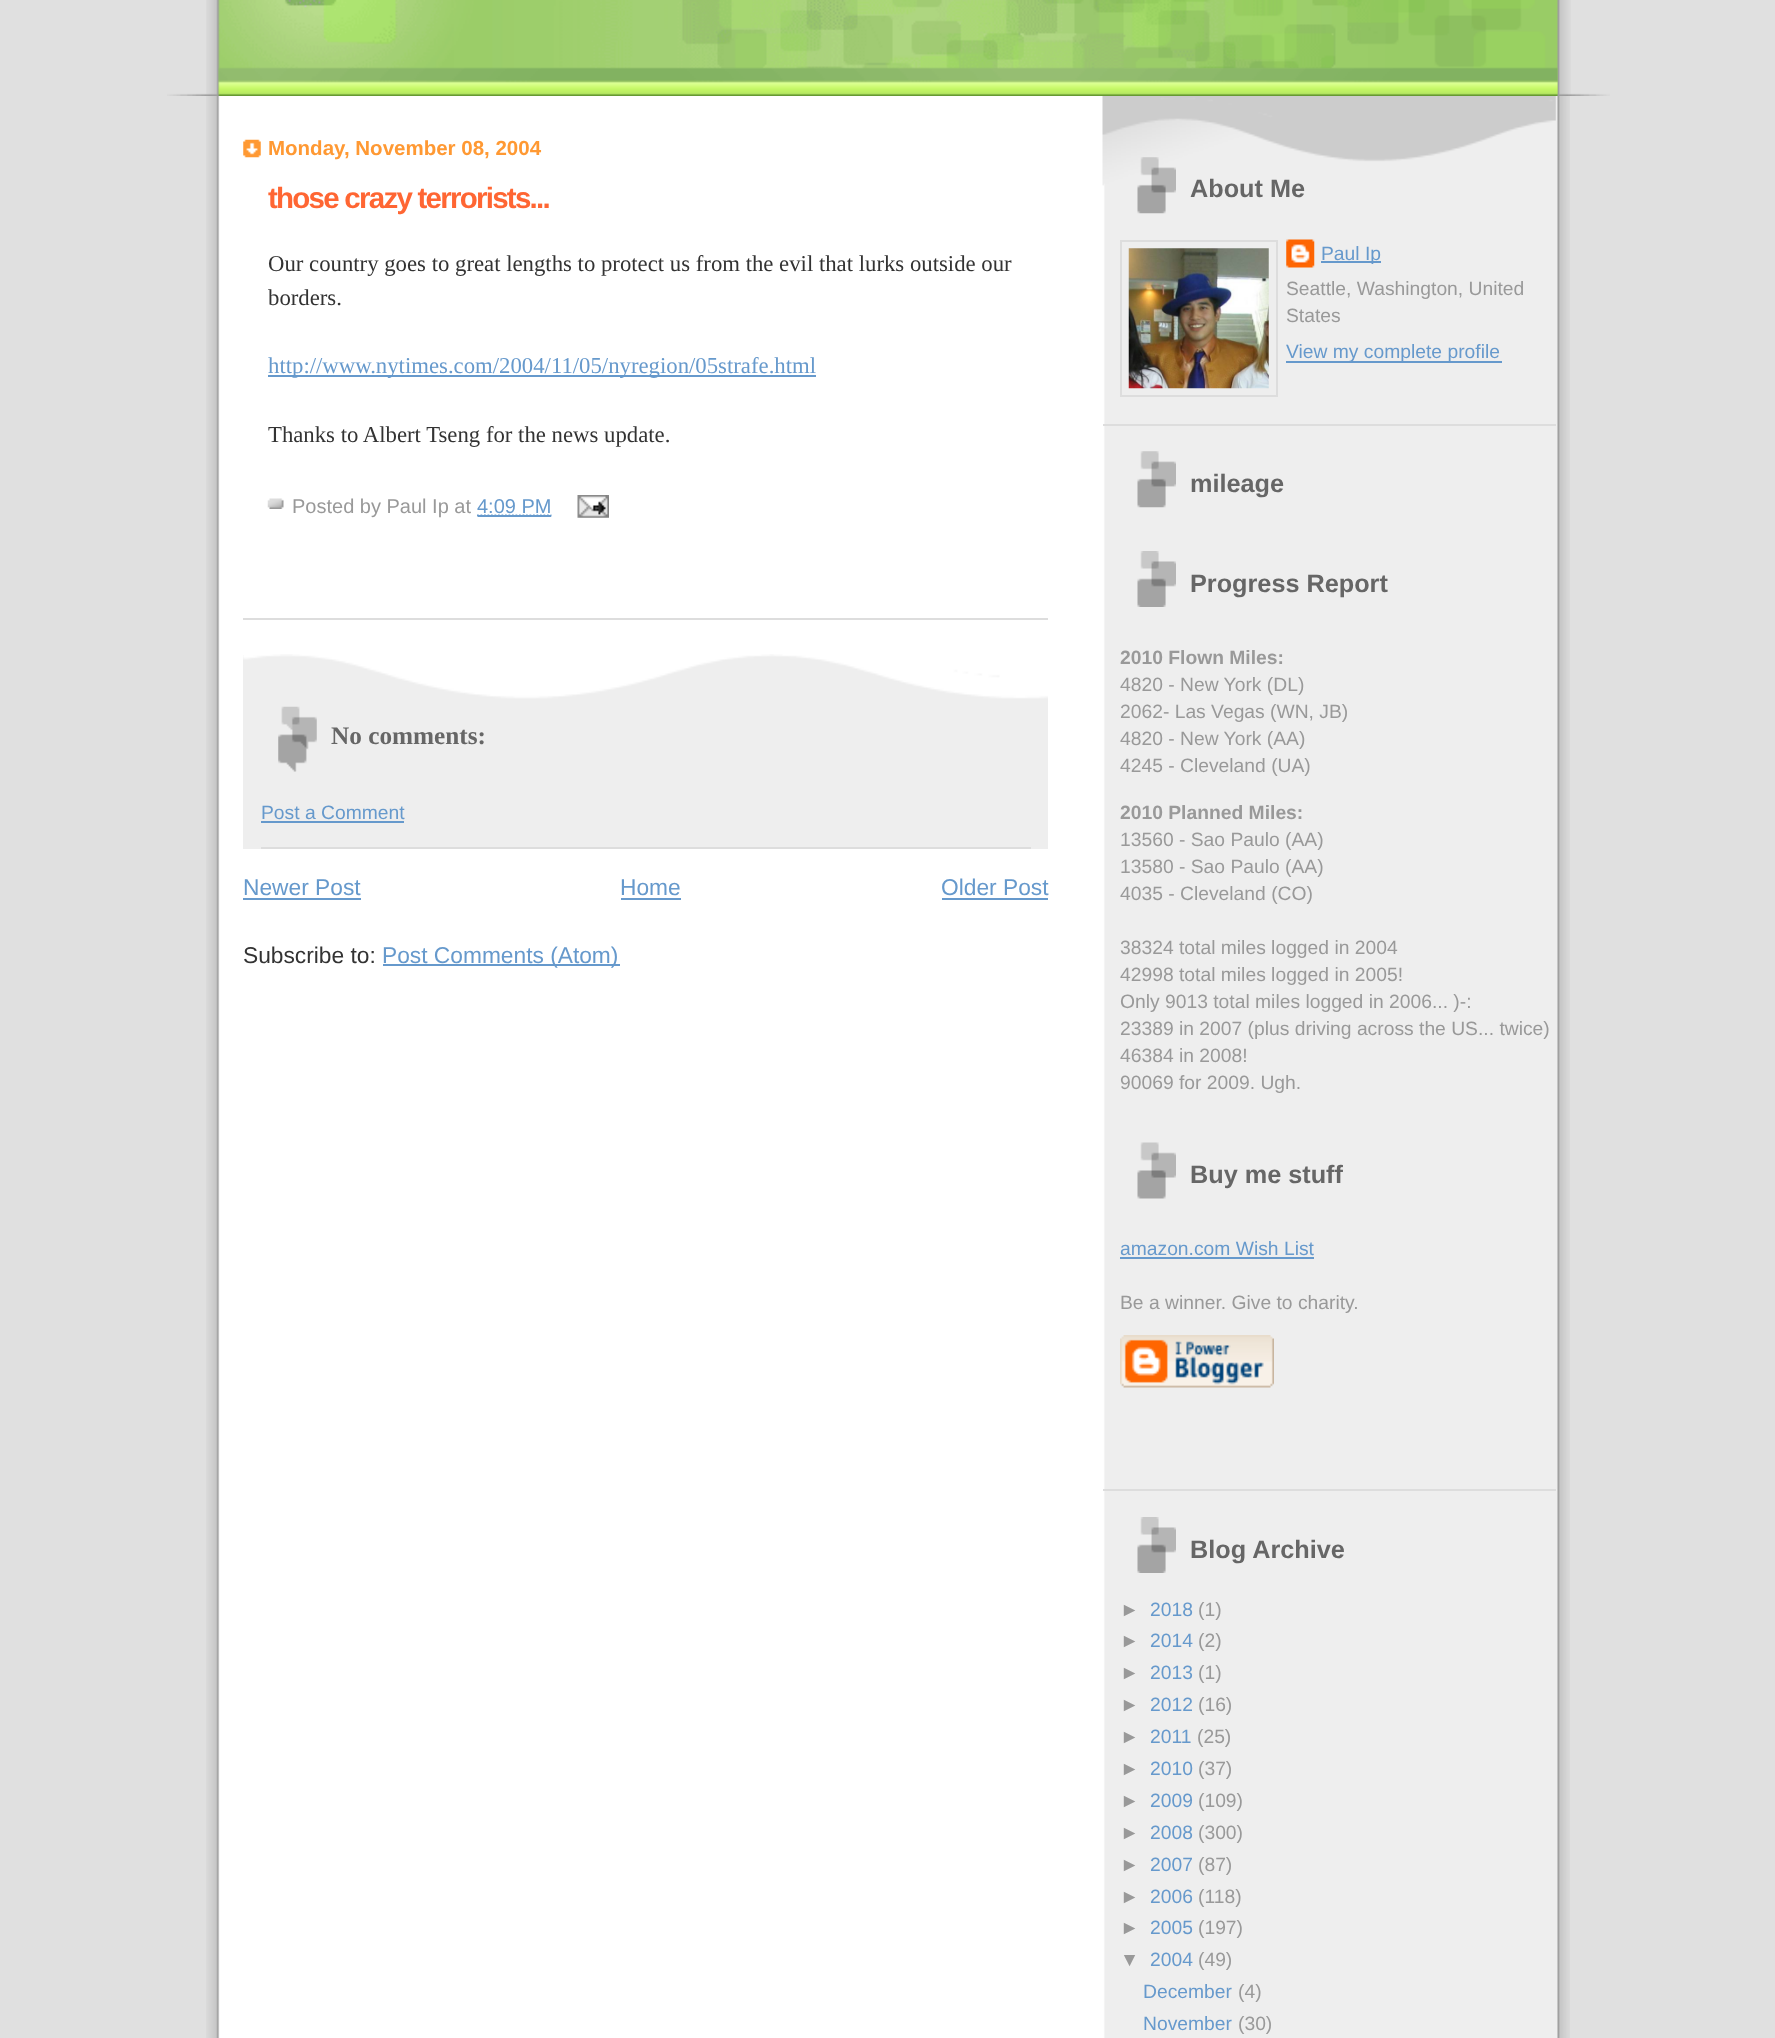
<?xml version="1.0" encoding="UTF-8"?>
<svg xmlns="http://www.w3.org/2000/svg" xmlns:xlink="http://www.w3.org/1999/xlink" width="1775" height="2038">
  <rect width="100%" height="100%" fill="#e0e0e0" />
  <image x="206" y="96" width="1364" height="1942" xlink:href="image1.png" />
  <image x="206" y="0" width="1365" height="95" xlink:href="image2.png" />
  <image x="167" y="67" width="1443" height="29" xlink:href="image3.png" />
  <image x="243" y="139" width="18" height="19" xlink:href="image4.png" />
  <rect x="243" y="618" width="805" height="2" fill="#dddddd" />
  <rect x="268" y="375" width="548" height="2" fill="#6699cc" />
  <image x="267" y="498" width="17" height="11" xlink:href="image5.png" />
  <path d="M 477 515.5 h 74.5" fill="none" stroke="#6699cc" stroke-width="1.8" stroke-dasharray="1.75 1.75" />
  <rect x="478" y="515" width="73" height="2" fill="#6699cc" />
  <image x="577" y="495" width="32" height="23" xlink:href="image6.png" />
  <rect x="243" y="655" width="805" height="194" fill="#eeeeee" />
  <image x="243" y="654" width="805" height="45" xlink:href="image7.png" />
  <image x="278" y="706" width="39" height="66" xlink:href="image8.png" />
  <rect x="261" y="847" width="770" height="2" fill="#dddddd" />
  <rect x="261" y="821" width="143" height="2" fill="#6699cc" />
  <rect x="243" y="898" width="118" height="2" fill="#6699cc" />
  <rect x="621" y="898" width="60" height="2" fill="#6699cc" />
  <rect x="942" y="898" width="106" height="2" fill="#6699cc" />
  <rect x="383" y="964" width="237" height="2" fill="#6699cc" />
  <image x="1102" y="96" width="454" height="90" xlink:href="image9.png" />
  <rect x="1103" y="424" width="453" height="2" fill="#dddddd" />
  <image x="1137" y="157" width="39" height="57" xlink:href="image10.png" />
  <rect x="1121" y="241" width="156" height="155" fill="none" stroke="#dddddd" stroke-width="2" />
  <image x="1128" y="248" width="141" height="141" xlink:href="image11.png" />
  <image x="1286" y="239" width="29" height="29" xlink:href="image12.png" />
  <rect x="1321" y="261" width="60" height="2" fill="#6699cc" />
  <rect x="1286" y="361" width="216" height="2" fill="#6699cc" />
  <rect x="1103" y="1489" width="453" height="2" fill="#dddddd" />
  <image x="1137" y="451" width="39" height="57" xlink:href="image13.png" />
  <image x="1137" y="551" width="39" height="56" xlink:href="image14.png" />
  <image x="1137" y="1142" width="39" height="57" xlink:href="image15.png" />
  <rect x="1120" y="1257" width="194" height="2" fill="#6699cc" />
  <image x="1120" y="1335" width="154" height="53" xlink:href="image16.png" />
  <image x="1137" y="1517" width="39" height="56" xlink:href="image14.png" />
  <text x="268" y="155" style="font-family: Liberation Sans; font-size: 20.5px; font-weight: bold; fill: #ff9933">Monday, November 08, 2004</text>
  <text x="268" y="208" style="font-family: Liberation Sans; font-size: 29.5px; font-weight: bold; letter-spacing: -1.75px; fill: #ff6633">those crazy terrorists...</text>
  <text x="268" y="271" style="font-family: Liberation Serif; font-size: 22.75px; fill: #333333">Our country goes to great lengths to protect us from the evil that lurks outside our</text>
  <text x="268" y="305" style="font-family: Liberation Serif; font-size: 22.75px; fill: #333333">borders.</text>
  <text x="268" y="373" style="font-family: Liberation Serif; font-size: 22.75px; fill: #6699cc">http://www.nytimes.com/2004/11/05/nyregion/05strafe.html</text>
  <text x="268" y="442" style="font-family: Liberation Serif; font-size: 22.75px; fill: #333333">Thanks to Albert Tseng for the news update.</text>
  <text x="292" y="513" style="font-family: Liberation Sans; font-size: 20px; fill: #999999">Posted by Paul Ip at</text>
  <text x="477" y="513" style="font-family: Liberation Sans; font-size: 20px; fill: #6699cc">4:09 PM</text>
  <text x="331" y="744" style="font-family: Liberation Serif; font-size: 25.25px; font-weight: bold; fill: #666666">No comments:</text>
  <text x="261" y="819" style="font-family: Liberation Sans; font-size: 19.3px; fill: #6699cc">Post a Comment</text>
  <text x="243" y="895" style="font-family: Liberation Sans; font-size: 22.75px; fill: #6699cc">Newer Post</text>
  <text x="620" y="895" style="font-family: Liberation Sans; font-size: 22.75px; fill: #6699cc">Home</text>
  <text x="941" y="895" style="font-family: Liberation Sans; font-size: 22.75px; fill: #6699cc">Older Post</text>
  <text x="243" y="963" style="font-family: Liberation Sans; font-size: 22.75px; fill: #333333">Subscribe to:</text>
  <text x="382" y="963" style="font-family: Liberation Sans; font-size: 22.75px; fill: #6699cc">Post Comments (Atom)</text>
  <text x="1190" y="197" style="font-family: Liberation Sans; font-size: 25.25px; font-weight: bold; fill: #666666">About Me</text>
  <text x="1321" y="260" style="font-family: Liberation Sans; font-size: 19.3px; fill: #6699cc">Paul Ip</text>
  <text x="1286" y="295" style="font-family: Liberation Sans; font-size: 19.3px; fill: #999999">Seattle, Washington, United</text>
  <text x="1286" y="322" style="font-family: Liberation Sans; font-size: 19.3px; fill: #999999">States</text>
  <text x="1286" y="358" style="font-family: Liberation Sans; font-size: 19.3px; fill: #6699cc">View my complete profile</text>
  <text x="1190" y="492" style="font-family: Liberation Sans; font-size: 25.25px; font-weight: bold; fill: #666666">mileage</text>
  <text x="1190" y="592" style="font-family: Liberation Sans; font-size: 25.25px; font-weight: bold; fill: #666666">Progress Report</text>
  <text x="1120" y="664" style="font-family: Liberation Sans; font-size: 19.3px; font-weight: bold; fill: #999999">2010 Flown Miles:</text>
  <text x="1120" y="691" style="font-family: Liberation Sans; font-size: 19.3px; fill: #999999">4820 - New York (DL)</text>
  <text x="1120" y="718" style="font-family: Liberation Sans; font-size: 19.3px; fill: #999999">2062- Las Vegas (WN, JB)</text>
  <text x="1120" y="745" style="font-family: Liberation Sans; font-size: 19.3px; fill: #999999">4820 - New York (AA)</text>
  <text x="1120" y="772" style="font-family: Liberation Sans; font-size: 19.3px; fill: #999999">4245 - Cleveland (UA)</text>
  <text x="1120" y="819" style="font-family: Liberation Sans; font-size: 19.3px; font-weight: bold; fill: #999999">2010 Planned Miles:</text>
  <text x="1120" y="846" style="font-family: Liberation Sans; font-size: 19.3px; fill: #999999">13560 - Sao Paulo (AA)</text>
  <text x="1120" y="873" style="font-family: Liberation Sans; font-size: 19.3px; fill: #999999">13580 - Sao Paulo (AA)</text>
  <text x="1120" y="900" style="font-family: Liberation Sans; font-size: 19.3px; fill: #999999">4035 - Cleveland (CO)</text>
  <text x="1120" y="954" style="font-family: Liberation Sans; font-size: 19.3px; fill: #999999">38324 total miles logged in 2004</text>
  <text x="1120" y="981" style="font-family: Liberation Sans; font-size: 19.3px; fill: #999999">42998 total miles logged in 2005!</text>
  <text x="1120" y="1008" style="font-family: Liberation Sans; font-size: 19.3px; fill: #999999">Only 9013 total miles logged in 2006... )-:</text>
  <text x="1120" y="1035" style="font-family: Liberation Sans; font-size: 19.3px; fill: #999999">23389 in 2007 (plus driving across the US... twice)</text>
  <text x="1120" y="1062" style="font-family: Liberation Sans; font-size: 19.3px; fill: #999999">46384 in 2008!</text>
  <text x="1120" y="1089" style="font-family: Liberation Sans; font-size: 19.3px; fill: #999999">90069 for 2009. Ugh.</text>
  <text x="1190" y="1183" style="font-family: Liberation Sans; font-size: 25.25px; font-weight: bold; fill: #666666">Buy me stuff</text>
  <text x="1120" y="1255" style="font-family: Liberation Sans; font-size: 19.3px; fill: #6699cc">amazon.com Wish List</text>
  <text x="1120" y="1309" style="font-family: Liberation Sans; font-size: 19.3px; fill: #999999">Be a winner. Give to charity.</text>
  <text x="1190" y="1558" style="font-family: Liberation Sans; font-size: 25.25px; font-weight: bold; fill: #666666">Blog Archive</text>
  <text x="1120" y="1616" style="font-family: Liberation Sans; font-size: 19.3px; fill: #999999">►</text>
  <text x="1150" y="1616" style="font-family: Liberation Sans; font-size: 19.3px; fill: #6699cc">2018</text>
  <text x="1198" y="1616" style="font-family: Liberation Sans; font-size: 19.3px; fill: #999999">(1)</text>
  <text x="1120" y="1647" style="font-family: Liberation Sans; font-size: 19.3px; fill: #999999">►</text>
  <text x="1150" y="1647" style="font-family: Liberation Sans; font-size: 19.3px; fill: #6699cc">2014</text>
  <text x="1198" y="1647" style="font-family: Liberation Sans; font-size: 19.3px; fill: #999999">(2)</text>
  <text x="1120" y="1679" style="font-family: Liberation Sans; font-size: 19.3px; fill: #999999">►</text>
  <text x="1150" y="1679" style="font-family: Liberation Sans; font-size: 19.3px; fill: #6699cc">2013</text>
  <text x="1198" y="1679" style="font-family: Liberation Sans; font-size: 19.3px; fill: #999999">(1)</text>
  <text x="1120" y="1711" style="font-family: Liberation Sans; font-size: 19.3px; fill: #999999">►</text>
  <text x="1150" y="1711" style="font-family: Liberation Sans; font-size: 19.3px; fill: #6699cc">2012</text>
  <text x="1198" y="1711" style="font-family: Liberation Sans; font-size: 19.3px; fill: #999999">(16)</text>
  <text x="1120" y="1743" style="font-family: Liberation Sans; font-size: 19.3px; fill: #999999">►</text>
  <text x="1150" y="1743" style="font-family: Liberation Sans; font-size: 19.3px; fill: #6699cc">2011</text>
  <text x="1197" y="1743" style="font-family: Liberation Sans; font-size: 19.3px; fill: #999999">(25)</text>
  <text x="1120" y="1775" style="font-family: Liberation Sans; font-size: 19.3px; fill: #999999">►</text>
  <text x="1150" y="1775" style="font-family: Liberation Sans; font-size: 19.3px; fill: #6699cc">2010</text>
  <text x="1198" y="1775" style="font-family: Liberation Sans; font-size: 19.3px; fill: #999999">(37)</text>
  <text x="1120" y="1807" style="font-family: Liberation Sans; font-size: 19.3px; fill: #999999">►</text>
  <text x="1150" y="1807" style="font-family: Liberation Sans; font-size: 19.3px; fill: #6699cc">2009</text>
  <text x="1198" y="1807" style="font-family: Liberation Sans; font-size: 19.3px; fill: #999999">(109)</text>
  <text x="1120" y="1839" style="font-family: Liberation Sans; font-size: 19.3px; fill: #999999">►</text>
  <text x="1150" y="1839" style="font-family: Liberation Sans; font-size: 19.3px; fill: #6699cc">2008</text>
  <text x="1198" y="1839" style="font-family: Liberation Sans; font-size: 19.3px; fill: #999999">(300)</text>
  <text x="1120" y="1871" style="font-family: Liberation Sans; font-size: 19.3px; fill: #999999">►</text>
  <text x="1150" y="1871" style="font-family: Liberation Sans; font-size: 19.3px; fill: #6699cc">2007</text>
  <text x="1198" y="1871" style="font-family: Liberation Sans; font-size: 19.3px; fill: #999999">(87)</text>
  <text x="1120" y="1903" style="font-family: Liberation Sans; font-size: 19.3px; fill: #999999">►</text>
  <text x="1150" y="1903" style="font-family: Liberation Sans; font-size: 19.3px; fill: #6699cc">2006</text>
  <text x="1198" y="1903" style="font-family: Liberation Sans; font-size: 19.3px; fill: #999999">(118)</text>
  <text x="1120" y="1934" style="font-family: Liberation Sans; font-size: 19.3px; fill: #999999">►</text>
  <text x="1150" y="1934" style="font-family: Liberation Sans; font-size: 19.3px; fill: #6699cc">2005</text>
  <text x="1198" y="1934" style="font-family: Liberation Sans; font-size: 19.3px; fill: #999999">(197)</text>
  <text x="1120" y="1966" style="font-family: Liberation Sans; font-size: 19.3px; fill: #999999">▼</text>
  <text x="1150" y="1966" style="font-family: Liberation Sans; font-size: 19.3px; fill: #6699cc">2004</text>
  <text x="1198" y="1966" style="font-family: Liberation Sans; font-size: 19.3px; fill: #999999">(49)</text>
  <text x="1143" y="1998" style="font-family: Liberation Sans; font-size: 19.3px; fill: #6699cc">December</text>
  <text x="1238" y="1998" style="font-family: Liberation Sans; font-size: 19.3px; fill: #999999">(4)</text>
  <text x="1143" y="2030" style="font-family: Liberation Sans; font-size: 19.3px; fill: #6699cc">November</text>
  <text x="1238" y="2030" style="font-family: Liberation Sans; font-size: 19.3px; fill: #999999">(30)</text>
</svg>
